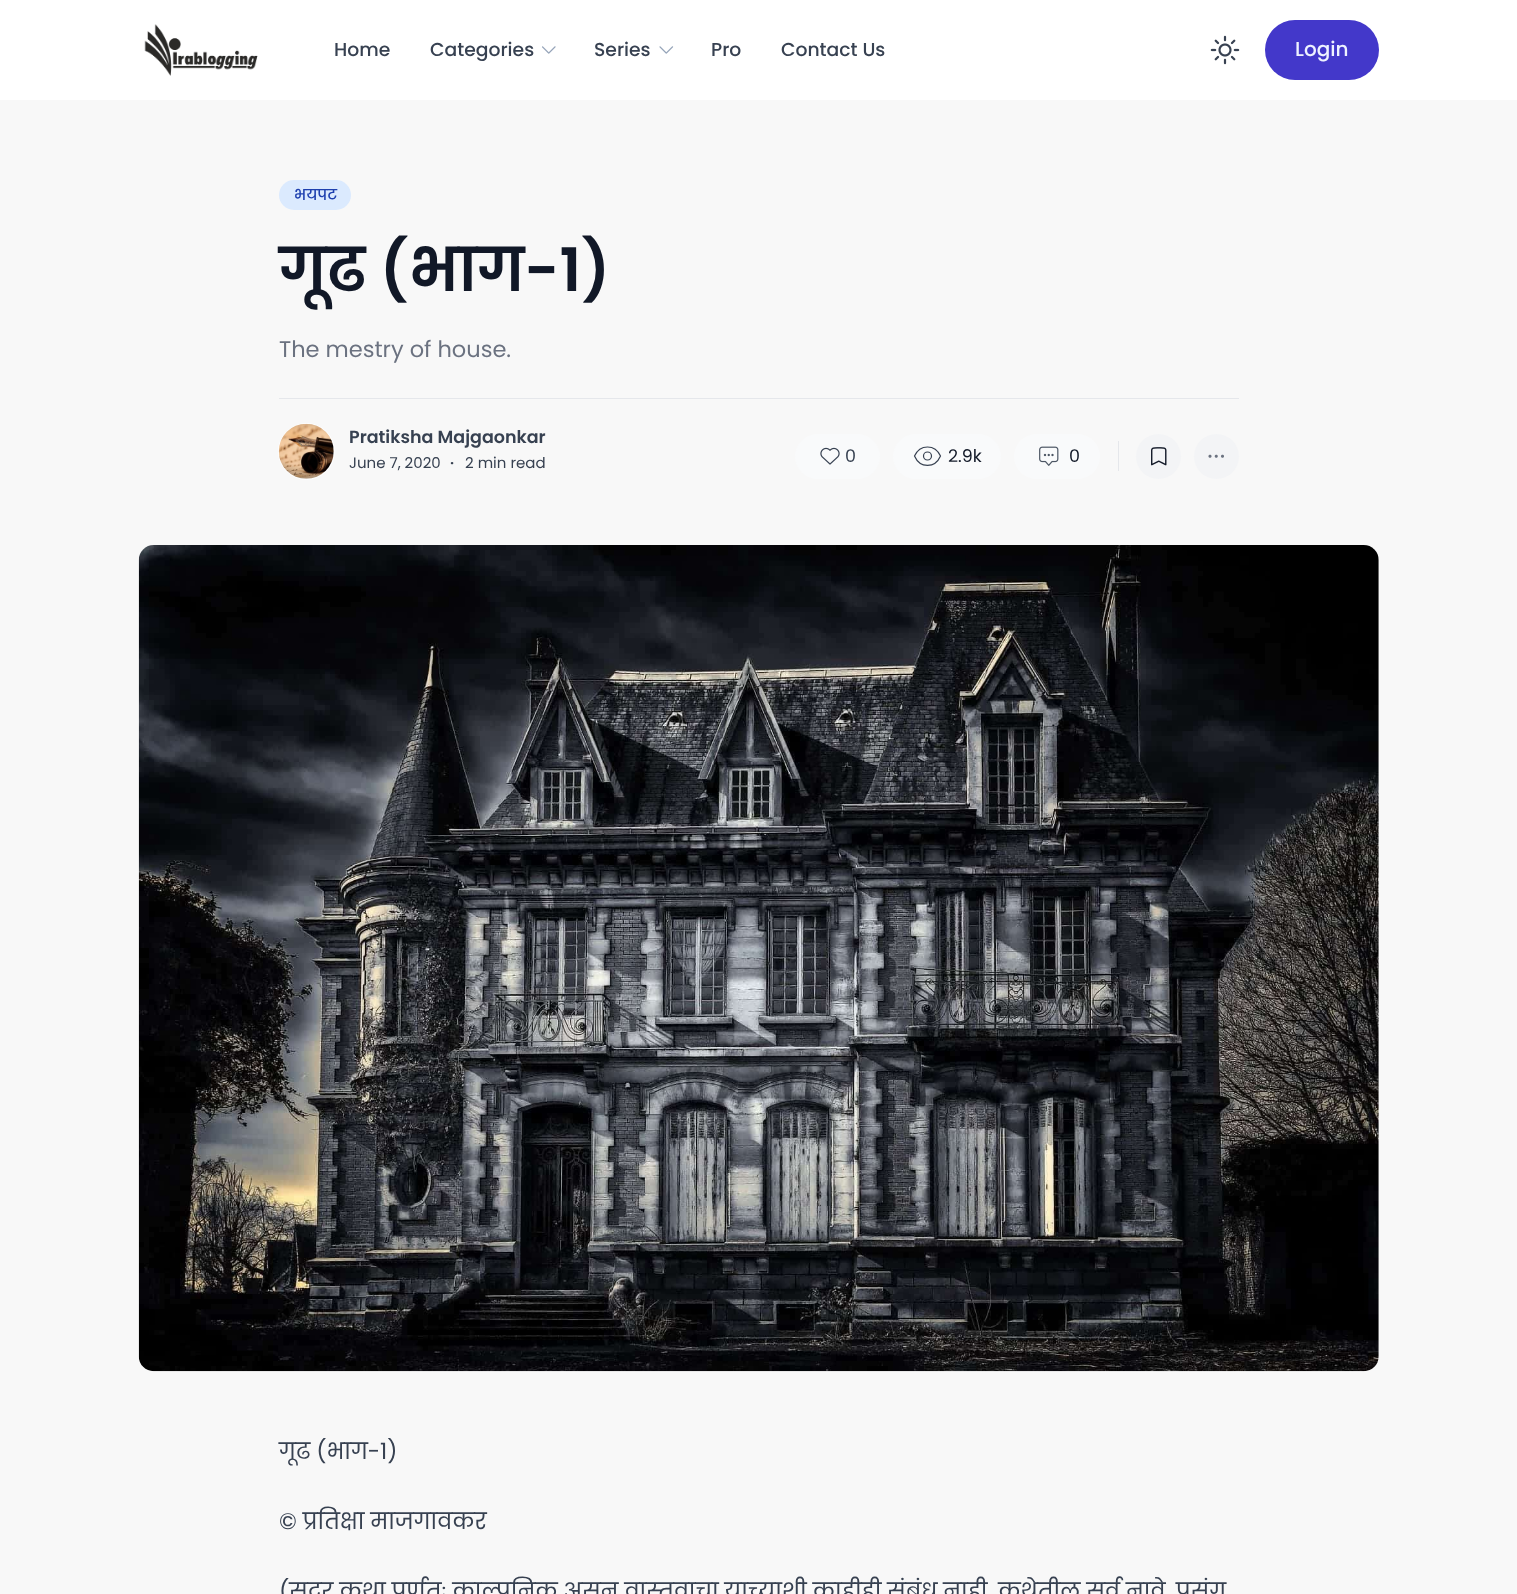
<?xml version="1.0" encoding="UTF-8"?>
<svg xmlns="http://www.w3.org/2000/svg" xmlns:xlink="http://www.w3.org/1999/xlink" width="1517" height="1594">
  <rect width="100%" height="100%" fill="#f8f8f8" />
  <rect width="1517" height="100" fill="#ffffff" />
  <image x="144" y="24" width="114" height="52" xlink:href="image1.png" />
  <image x="542" y="46" width="14" height="8" xlink:href="image2.png" />
  <image x="659" y="46" width="15" height="8" xlink:href="image3.png" />
  <image x="1210" y="35" width="30" height="30" xlink:href="image4.png" />
  <rect x="1265" y="20" width="114" height="60" rx="30" fill="#4338ca" />
  <rect x="279" y="180" width="72" height="30" rx="15" fill="#dbeafe" />
  <rect x="279" y="398" width="960" height="1" fill="#e5e7eb" />
  <circle cx="306.5" cy="451.5" r="28" fill="none" stroke="#ffffff" />
  <image x="278" y="423" width="56" height="56" xlink:href="image5.png" />
  <rect x="795" y="434" width="85" height="45" rx="22.5" fill="#f9fafb" />
  <image x="820" y="447" width="20" height="18" xlink:href="image6.png" />
  <rect x="893" y="434" width="108" height="45" rx="22.5" fill="#f9fafb" />
  <path d="M 914.5 456 c 5.5 -12 20.5 -12 26 0 c -5.5 12.5 -20.5 12.5 -26 0 z" fill="none" stroke="#374151" stroke-width="1.2" stroke-linecap="round" stroke-linejoin="round" />
  <circle cx="927.5" cy="456" r="4" fill="none" stroke="#374151" stroke-width="1.2" />
  <rect x="1014" y="434" width="86" height="45" rx="22.5" fill="#f9fafb" />
  <image x="1039" y="446" width="20" height="20" xlink:href="image7.png" />
  <rect x="1118" y="441" width="1" height="30" fill="#e5e7eb" />
  <circle cx="1158.5" cy="456.5" r="22.5" fill="#f3f4f6" />
  <image x="1151" y="447" width="16" height="19" xlink:href="image8.png" />
  <circle cx="1216.5" cy="456.5" r="22.5" fill="#f3f4f6" />
  <image x="1208" y="454" width="16" height="4" xlink:href="image9.png" />
  <image x="138" y="545" width="1241" height="827" xlink:href="image10.png" />
  <text x="334" y="56" style="font-family: Poppins; font-size: 18.75px; font-weight: 500; fill: #374151">Home</text>
  <text x="430" y="56" style="font-family: Poppins; font-size: 18.75px; font-weight: 500; fill: #374151">Categories</text>
  <text x="594" y="56" style="font-family: Poppins; font-size: 18.75px; font-weight: 500; fill: #374151">Series</text>
  <text x="711" y="56" style="font-family: Poppins; font-size: 18.75px; font-weight: 500; fill: #374151">Pro</text>
  <text x="781" y="56" style="font-family: Poppins; font-size: 18.75px; font-weight: 500; fill: #374151">Contact Us</text>
  <text x="1295" y="56" style="font-family: Poppins; font-size: 20px; font-weight: 500; fill: #eef2ff">Login</text>
  <text x="294" y="200" style="font-family: Poppins; font-size: 15px; font-weight: 500; fill: #1e40af">भयपट</text>
  <text x="279" y="291" style="font-family: Poppins; font-size: 60px; font-weight: 600; fill: #111827">गूढ (भाग-१)</text>
  <text x="279" y="357" style="font-family: Poppins; font-size: 22.5px; fill: #6b7280">The mestry of house.</text>
  <text x="349" y="443" style="font-family: Poppins; font-size: 17.5px; font-weight: 600; fill: #374151">Pratiksha Majgaonkar</text>
  <text x="349" y="468" style="font-family: Poppins; font-size: 15px; fill: #374151">June 7, 2020</text>
  <text x="450" y="468" style="font-family: Poppins; font-size: 15px; font-weight: 600; fill: #374151">·</text>
  <text x="465" y="468" style="font-family: Poppins; font-size: 15px; fill: #374151">2 min read</text>
  <text x="845" y="462" style="font-family: Poppins; font-size: 17.5px; fill: #374151">0</text>
  <text x="948" y="462" style="font-family: Poppins; font-size: 17.5px; fill: #111827">2.9k</text>
  <text x="1069" y="462" style="font-family: Poppins; font-size: 17.5px; fill: #111827">0</text>
  <text x="279" y="1459" style="font-family: Poppins; font-size: 22.5px; fill: #374151">गूढ (भाग-१)</text>
  <text x="279" y="1529" style="font-family: Poppins; font-size: 22.5px; fill: #374151">© प्रतिक्षा माजगावकर</text>
  <text x="279" y="1599" style="font-family: Poppins; font-size: 22.5px; fill: #374151">(सदर कथा पूर्णतः काल्पनिक असून वास्तवाचा याच्याशी काहीही संबंध नाही. कथेतील सर्व नावे, प्रसंग</text>
</svg>
